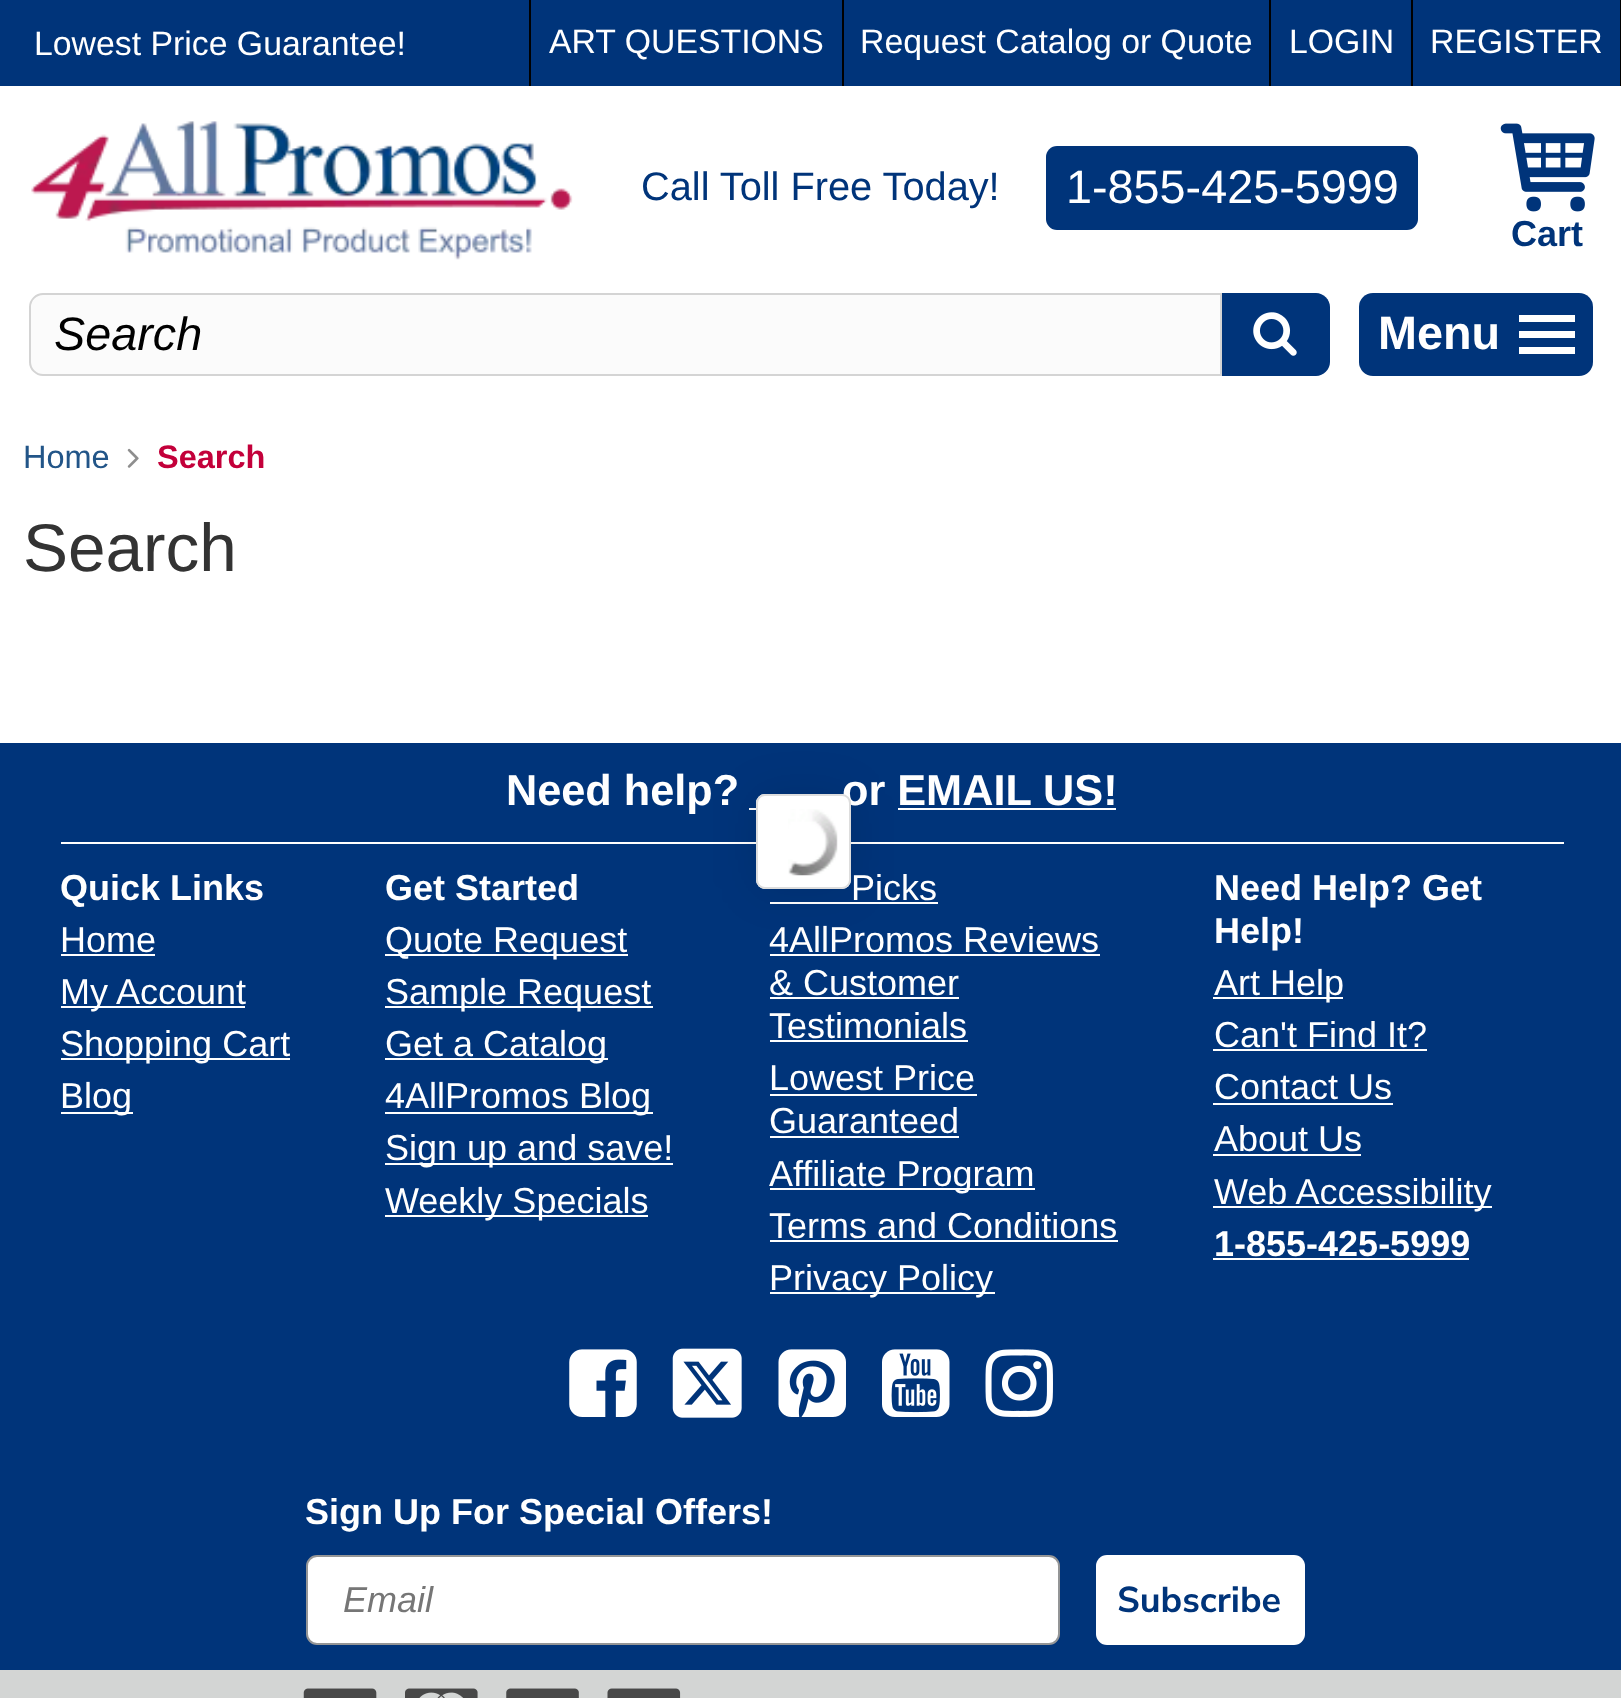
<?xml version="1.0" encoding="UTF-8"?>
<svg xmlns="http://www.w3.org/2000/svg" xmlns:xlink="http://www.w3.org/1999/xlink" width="1621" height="1698">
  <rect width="100%" height="100%" fill="#ffffff" />
  <rect width="1620" height="86" fill="#00347a" />
  <rect x="1620" width="1" height="86" fill="#000000" />
  <rect x="529" width="2" height="86" fill="#000000" />
  <rect x="842" width="2" height="86" fill="#000000" />
  <rect x="1269" width="2" height="86" fill="#000000" />
  <rect x="1411" width="2" height="86" fill="#000000" />
  <image x="31" y="121" width="542" height="139" xlink:href="image1.png" />
  <rect x="1046" y="146" width="372" height="84" rx="11" fill="#00347a" />
  <image x="1500" y="123" width="95" height="89" xlink:href="image2.png" />
  <path d="M 43 294 h 1178 v 81 h -1178 c -7 0 -13 -6 -13 -13 v -55 c 0 -7 6 -13 13 -13 z" fill="#fbfbfb" stroke="#d4d4d4" stroke-width="2" />
  <path d="M 1222 293 h 94 c 7.5 0 14 6.5 14 14 v 55 c 0 7.5 -6.5 14 -14 14 h -94 z" fill="#00347a" />
  <image x="1253" y="312" width="44" height="44" xlink:href="image3.png" />
  <rect x="1359" y="293" width="234" height="83" rx="14" fill="#00347a" />
  <rect x="1519" y="315" width="56" height="7" fill="#ffffff" />
  <rect x="1519" y="331" width="56" height="7" fill="#ffffff" />
  <rect x="1519" y="347" width="56" height="7" fill="#ffffff" />
  <image x="127" y="448" width="12" height="20" xlink:href="image4.png" />
  <rect y="743" width="1621" height="927" fill="#00347a" />
  <rect x="61" y="842" width="1503" height="2" fill="#ffffff" />
  <rect x="749" y="808" width="7" height="2" fill="#ffffff" />
  <rect x="898" y="808" width="218" height="2" fill="#ffffff" />
  <rect x="61" y="954" width="94" height="2" fill="#ffffff" />
  <rect x="61" y="1006" width="184" height="2" fill="#ffffff" />
  <rect x="61" y="1058" width="229" height="2" fill="#ffffff" />
  <rect x="61" y="1112" width="72" height="2" fill="#ffffff" />
  <rect x="385" y="954" width="243" height="2" fill="#ffffff" />
  <rect x="385" y="1006" width="268" height="2" fill="#ffffff" />
  <rect x="385" y="1058" width="223" height="2" fill="#ffffff" />
  <rect x="385" y="1112" width="268" height="2" fill="#ffffff" />
  <rect x="385" y="1163" width="288" height="2" fill="#ffffff" />
  <rect x="385" y="1215" width="263" height="2" fill="#ffffff" />
  <rect x="770" y="902" width="168" height="2" fill="#ffffff" />
  <rect x="770" y="954" width="330" height="2" fill="#ffffff" />
  <rect x="770" y="997" width="189" height="2" fill="#ffffff" />
  <rect x="770" y="1040" width="198" height="2" fill="#ffffff" />
  <rect x="770" y="1094" width="207" height="2" fill="#ffffff" />
  <rect x="770" y="1136" width="189" height="2" fill="#ffffff" />
  <rect x="770" y="1188" width="265" height="2" fill="#ffffff" />
  <rect x="770" y="1240" width="348" height="2" fill="#ffffff" />
  <rect x="770" y="1292" width="225" height="2" fill="#ffffff" />
  <rect x="1213" y="997" width="130" height="2" fill="#ffffff" />
  <rect x="1213" y="1049" width="214" height="2" fill="#ffffff" />
  <rect x="1213" y="1103" width="180" height="2" fill="#ffffff" />
  <rect x="1213" y="1154" width="148" height="2" fill="#ffffff" />
  <rect x="1213" y="1206" width="279" height="2" fill="#ffffff" />
  <rect x="1213" y="1258" width="256" height="2" fill="#ffffff" />
  <image x="569" y="1349" width="68" height="68" xlink:href="image5.png" />
  <image x="672" y="1348" width="70" height="70" xlink:href="image6.png" />
  <image x="778" y="1349" width="68" height="68" xlink:href="image7.png" />
  <image x="882" y="1349" width="68" height="68" xlink:href="image8.png" />
  <image x="985" y="1349" width="68" height="68" xlink:href="image9.png" />
  <rect x="307" y="1556" width="752" height="88" rx="10" fill="#ffffff" stroke="#949596" stroke-width="2" />
  <rect x="1096" y="1555" width="209" height="90" rx="11" fill="#ffffff" />
  <rect y="1670" width="1621" height="28" fill="#d3d5d4" />
  <image x="303" y="1688" width="74" height="10" xlink:href="image10.png" />
  <image x="405" y="1688" width="73" height="10" xlink:href="image11.png" />
  <image x="506" y="1688" width="73" height="10" xlink:href="image12.png" />
  <image x="607" y="1688" width="74" height="10" xlink:href="image13.png" />
  <rect x="756" y="794" width="95" height="95" rx="9" fill="#000000" fill-opacity="0.1" filter="blur(22.5px)" />
  <rect x="756" y="794" width="95" height="95" rx="9" fill="#ffffff" />
  <image x="788" y="809" width="50" height="67" xlink:href="image14.png" />
  <text x="34" y="55" style="font-family: Liberation Sans; font-size: 33.8px; fill: #ffffff">Lowest Price Guarantee!</text>
  <text x="549" y="53" style="font-family: Liberation Sans; font-size: 33.8px; fill: #ffffff">ART QUESTIONS</text>
  <text x="860" y="53" style="font-family: Liberation Sans; font-size: 33.8px; fill: #ffffff">Request Catalog or Quote</text>
  <text x="1289" y="53" style="font-family: Liberation Sans; font-size: 33.8px; fill: #ffffff">LOGIN</text>
  <text x="1430" y="53" style="font-family: Liberation Sans; font-size: 33.8px; fill: #ffffff">REGISTER</text>
  <text x="641" y="200" style="font-family: Liberation Sans; font-size: 39.75px; fill: #00347a">Call Toll Free Today!</text>
  <text x="1066" y="203" style="font-family: Liberation Sans; font-size: 46.75px; fill: #ffffff">1-855-425-5999</text>
  <text x="1511" y="246" style="font-family: Liberation Sans; font-size: 36px; font-weight: bold; fill: #00347a">Cart</text>
  <text x="54" y="350" style="font-family: Liberation Sans; font-size: 46.75px; font-style: italic; fill: #000000">Search</text>
  <text x="1378" y="349" style="font-family: Liberation Sans; font-size: 46.75px; font-weight: bold; fill: #ffffff">Menu</text>
  <text x="23" y="468" style="font-family: Liberation Sans; font-size: 32.5px; fill: #225588">Home</text>
  <text x="157" y="468" style="font-family: Liberation Sans; font-size: 32.5px; font-weight: bold; fill: #c3003a">Search</text>
  <text x="23" y="571" style="font-family: Liberation Sans; font-size: 67.5px; fill: #333333">Search</text>
  <text x="506" y="805" style="font-family: Liberation Sans; font-size: 43.25px; font-weight: bold; fill: #ffffff">Need help?</text>
  <text x="842" y="805" style="font-family: Liberation Sans; font-size: 43.25px; font-weight: bold; fill: #ffffff">or EMAIL US!</text>
  <text x="60" y="900" style="font-family: Liberation Sans; font-size: 36px; font-weight: bold; fill: #ffffff">Quick Links</text>
  <text x="60" y="952" style="font-family: Liberation Sans; font-size: 36px; fill: #ffffff">Home</text>
  <text x="60" y="1004" style="font-family: Liberation Sans; font-size: 36px; fill: #ffffff">My Account</text>
  <text x="60" y="1056" style="font-family: Liberation Sans; font-size: 36px; fill: #ffffff">Shopping Cart</text>
  <text x="60" y="1108" style="font-family: Liberation Sans; font-size: 36px; fill: #ffffff">Blog</text>
  <text x="385" y="900" style="font-family: Liberation Sans; font-size: 36px; font-weight: bold; fill: #ffffff">Get Started</text>
  <text x="385" y="952" style="font-family: Liberation Sans; font-size: 36px; fill: #ffffff">Quote Request</text>
  <text x="385" y="1004" style="font-family: Liberation Sans; font-size: 36px; fill: #ffffff">Sample Request</text>
  <text x="385" y="1056" style="font-family: Liberation Sans; font-size: 36px; fill: #ffffff">Get a Catalog</text>
  <text x="385" y="1108" style="font-family: Liberation Sans; font-size: 36px; fill: #ffffff">4AllPromos Blog</text>
  <text x="385" y="1160" style="font-family: Liberation Sans; font-size: 36px; fill: #ffffff">Sign up and save!</text>
  <text x="385" y="1213" style="font-family: Liberation Sans; font-size: 36px; fill: #ffffff">Weekly Specials</text>
  <text x="851" y="900" style="font-family: Liberation Sans; font-size: 36px; fill: #ffffff">Picks</text>
  <text x="769" y="952" style="font-family: Liberation Sans; font-size: 36px; fill: #ffffff">4AllPromos Reviews</text>
  <text x="769" y="995" style="font-family: Liberation Sans; font-size: 36px; fill: #ffffff">&amp; Customer</text>
  <text x="769" y="1038" style="font-family: Liberation Sans; font-size: 36px; fill: #ffffff">Testimonials</text>
  <text x="769" y="1090" style="font-family: Liberation Sans; font-size: 36px; fill: #ffffff">Lowest Price</text>
  <text x="769" y="1133" style="font-family: Liberation Sans; font-size: 36px; fill: #ffffff">Guaranteed</text>
  <text x="769" y="1186" style="font-family: Liberation Sans; font-size: 36px; fill: #ffffff">Affiliate Program</text>
  <text x="769" y="1238" style="font-family: Liberation Sans; font-size: 36px; fill: #ffffff">Terms and Conditions</text>
  <text x="769" y="1290" style="font-family: Liberation Sans; font-size: 36px; fill: #ffffff">Privacy Policy</text>
  <text x="1214" y="900" style="font-family: Liberation Sans; font-size: 36px; font-weight: bold; fill: #ffffff">Need Help? Get</text>
  <text x="1214" y="943" style="font-family: Liberation Sans; font-size: 36px; font-weight: bold; fill: #ffffff">Help!</text>
  <text x="1214" y="995" style="font-family: Liberation Sans; font-size: 36px; fill: #ffffff">Art Help</text>
  <text x="1214" y="1047" style="font-family: Liberation Sans; font-size: 36px; fill: #ffffff">Can't Find It?</text>
  <text x="1214" y="1099" style="font-family: Liberation Sans; font-size: 36px; fill: #ffffff">Contact Us</text>
  <text x="1214" y="1151" style="font-family: Liberation Sans; font-size: 36px; fill: #ffffff">About Us</text>
  <text x="1214" y="1204" style="font-family: Liberation Sans; font-size: 36px; fill: #ffffff">Web Accessibility</text>
  <text x="1214" y="1256" style="font-family: Liberation Sans; font-size: 36px; font-weight: bold; fill: #ffffff">1-855-425-5999</text>
  <text x="305" y="1524" style="font-family: Liberation Sans; font-size: 36px; font-weight: bold; fill: #ffffff">Sign Up For Special Offers!</text>
  <text x="343" y="1612" style="font-family: Liberation Sans; font-size: 36px; font-style: italic; fill: #767676">Email</text>
  <text x="1117" y="1612" style="font-family: Nunito Sans; font-size: 36px; font-weight: bold; fill: #00347a">Subscribe</text>
  <rect x="757" y="795" width="93" height="93" rx="8" fill="none" stroke="#dddddd" stroke-width="2" />
</svg>
